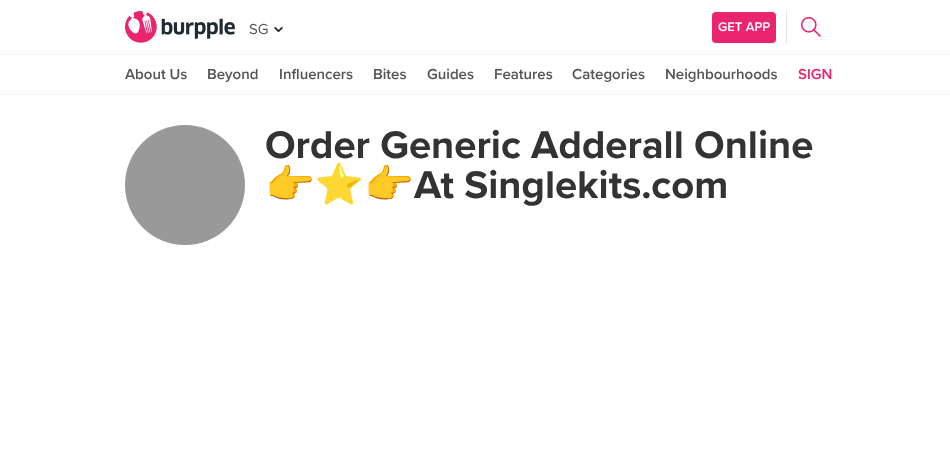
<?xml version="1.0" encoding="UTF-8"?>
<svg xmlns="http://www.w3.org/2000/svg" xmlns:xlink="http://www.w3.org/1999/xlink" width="950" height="454">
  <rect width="100%" height="100%" fill="#ffffff" />
  <rect y="54" width="950" height="1" fill="#f5f5f5" />
  <image x="125" y="11" width="110" height="32" xlink:href="image1.png" />
  <image x="274" y="27" width="9" height="5" xlink:href="image2.png" />
  <rect x="712" y="12" width="64" height="31" rx="4" fill="#ea246e" />
  <rect x="786" y="10" width="1" height="34" fill="#e7e7e7" />
  <image x="801" y="17" width="20" height="20" xlink:href="image3.png" />
  <rect y="94" width="950" height="1" fill="#f5f5f5" />
  <circle cx="185" cy="185" r="60" fill="#999999" />
  <text x="249" y="34" style="font-family: Proxima Nova; font-size: 15px; fill: #555555">SG</text>
  <text x="718" y="31" style="font-family: Proxima Nova; font-size: 13px; font-weight: 600; fill: #ffffff">GET APP</text>
  <text x="125" y="79" style="font-family: Proxima Nova; font-size: 15px; font-weight: 600; fill: #555555">About Us</text>
  <text x="207" y="79" style="font-family: Proxima Nova; font-size: 15px; font-weight: 600; fill: #555555">Beyond</text>
  <text x="279" y="79" style="font-family: Proxima Nova; font-size: 15px; font-weight: 600; fill: #555555">Influencers</text>
  <text x="373" y="79" style="font-family: Proxima Nova; font-size: 15px; font-weight: 600; fill: #555555">Bites</text>
  <text x="427" y="79" style="font-family: Proxima Nova; font-size: 15px; font-weight: 600; fill: #555555">Guides</text>
  <text x="494" y="79" style="font-family: Proxima Nova; font-size: 15px; font-weight: 600; fill: #555555">Features</text>
  <text x="572" y="79" style="font-family: Proxima Nova; font-size: 15px; font-weight: 600; fill: #555555">Categories</text>
  <text x="665" y="79" style="font-family: Proxima Nova; font-size: 15px; font-weight: 600; fill: #555555">Neighbourhoods</text>
  <text x="798" y="79" style="font-family: Proxima Nova; font-size: 15px; font-weight: 600; fill: #ea246e">SIGN</text>
  <text x="265" y="158" style="font-family: Proxima Nova; font-size: 40px; font-weight: bold; fill: #333333">Order Generic Adderall Online</text>
  <text x="265" y="198" style="font-family: Noto Color Emoji; font-size: 40px; font-weight: bold; fill: #333333">👉⭐👉</text>
  <text x="414" y="198" style="font-family: Proxima Nova; font-size: 40px; font-weight: bold; fill: #333333">At Singlekits.com</text>
</svg>
